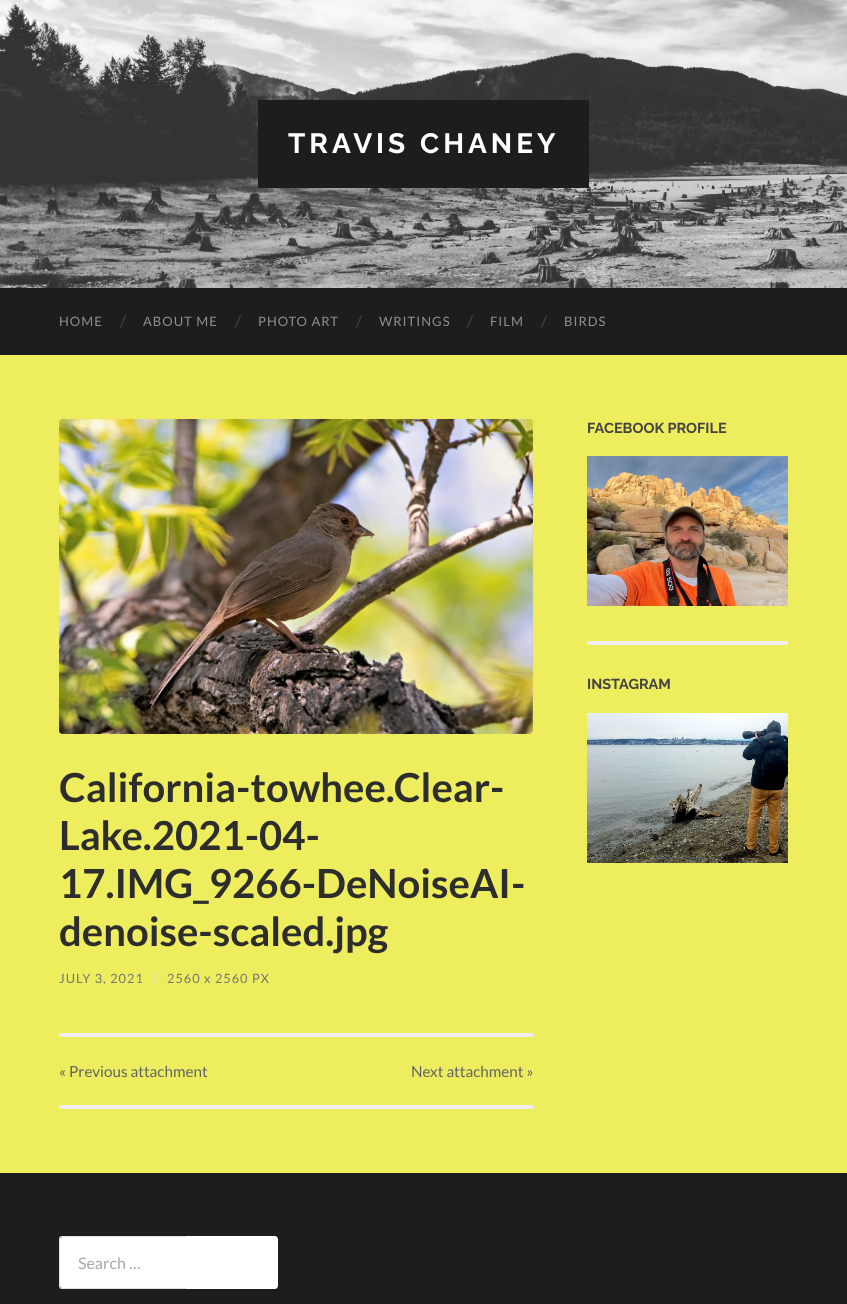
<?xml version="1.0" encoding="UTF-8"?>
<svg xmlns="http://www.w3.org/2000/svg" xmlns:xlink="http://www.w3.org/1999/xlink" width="847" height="1304">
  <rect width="100%" height="100%" fill="#eded5e" />
  <image x="0" y="0" width="847" height="288" xlink:href="image1.png" />
  <rect x="258" y="100" width="331" height="88" fill="#1d1d1d" />
  <rect y="288" width="847" height="67" fill="#1d1d1d" />
  <rect x="587" y="641" width="201" height="4" fill="#eeeeee" />
  <image x="587" y="456" width="201" height="150" xlink:href="image2.png" />
  <image x="587" y="713" width="201" height="150" xlink:href="image3.png" />
  <image x="59" y="419" width="474" height="315" xlink:href="image4.png" />
  <rect x="59" y="1033" width="474" height="4" fill="#eeeeee" />
  <rect x="59" y="1105" width="474" height="4" fill="#eeeeee" />
  <rect y="1173" width="847" height="131" fill="#1d1d1d" />
  <path d="M 62 1237 h 124 v 51 h -124 c -1 0 -2 -1 -2 -2 v -47 c 0 -1 1 -2 2 -2 z" fill="#ffffff" />
  <path d="M 62 1236 h 124 v 53 h -124 c -2 0 -3 -1 -3 -3 v -47 c 0 -2 1 -3 3 -3 z m 0 1 h 124 v 51 h -124 c -1 0 -2 -1 -2 -2 v -47 c 0 -1 1 -2 2 -2 z" fill="#e1e1e3" fill-rule="evenodd" />
  <path d="M 186 1236 h 89 c 1.5 0 3 1.5 3 3 v 47 c 0 1.5 -1.5 3 -3 3 h -89 z" fill="#ffffff" />
  <text x="288" y="153" style="font-family: Raleway; font-size: 28px; font-weight: bold; letter-spacing: 4px; fill: #ffffff">TRAVIS CHANEY</text>
  <text x="59" y="326" style="font-family: Lato; font-size: 13px; letter-spacing: 1px; fill: #8e8e8e">HOME</text>
  <text x="120" y="327" style="font-family: Lato; font-size: 16px; fill: #444444">/</text>
  <text x="143" y="326" style="font-family: Lato; font-size: 13px; letter-spacing: 1px; fill: #8e8e8e">ABOUT ME</text>
  <text x="235" y="327" style="font-family: Lato; font-size: 16px; fill: #444444">/</text>
  <text x="258" y="326" style="font-family: Lato; font-size: 13px; letter-spacing: 1px; fill: #8e8e8e">PHOTO ART</text>
  <text x="356" y="327" style="font-family: Lato; font-size: 16px; fill: #444444">/</text>
  <text x="379" y="326" style="font-family: Lato; font-size: 13px; letter-spacing: 1px; fill: #8e8e8e">WRITINGS</text>
  <text x="467" y="327" style="font-family: Lato; font-size: 16px; fill: #444444">/</text>
  <text x="490" y="326" style="font-family: Lato; font-size: 13px; letter-spacing: 1px; fill: #8e8e8e">FILM</text>
  <text x="541" y="327" style="font-family: Lato; font-size: 16px; fill: #444444">/</text>
  <text x="564" y="326" style="font-family: Lato; font-size: 13px; letter-spacing: 1px; fill: #8e8e8e">BIRDS</text>
  <text x="587" y="433" style="font-family: Raleway; font-size: 14.5px; font-weight: bold; fill: #444444">FACEBOOK PROFILE</text>
  <text x="587" y="689" style="font-family: Raleway; font-size: 14.5px; font-weight: bold; fill: #444444">INSTAGRAM</text>
  <text x="59" y="802" style="font-family: Lato; font-size: 40px; font-weight: bold; fill: #2d2d2d">California-towhee.Clear-</text>
  <text x="59" y="850" style="font-family: Lato; font-size: 40px; font-weight: bold; fill: #2d2d2d">Lake.2021-04-</text>
  <text x="59" y="898" style="font-family: Lato; font-size: 40px; font-weight: bold; fill: #2d2d2d">17.IMG_9266-DeNoiseAI-</text>
  <text x="59" y="946" style="font-family: Lato; font-size: 40px; font-weight: bold; fill: #2d2d2d">denoise-scaled.jpg</text>
  <text x="59" y="983" style="font-family: Lato; font-size: 12.75px; letter-spacing: 1px; fill: #767676">JULY 3, 2021</text>
  <text x="153" y="983" style="font-family: Lato; font-size: 12.75px; letter-spacing: 1px; fill: #dddddd">/</text>
  <text x="167" y="983" style="font-family: Lato; font-size: 12.75px; letter-spacing: 1px; fill: #767676">2560 x 2560 PX</text>
  <text x="59" y="1077" style="font-family: Lato; font-size: 15.25px; fill: #666666">« Previous attachment</text>
  <text x="411" y="1077" style="font-family: Lato; font-size: 15.25px; fill: #666666">Next attachment »</text>
  <text x="78" y="1269" style="font-family: Lato; font-size: 16px; fill: #a9a9a9">Search …</text>
</svg>
